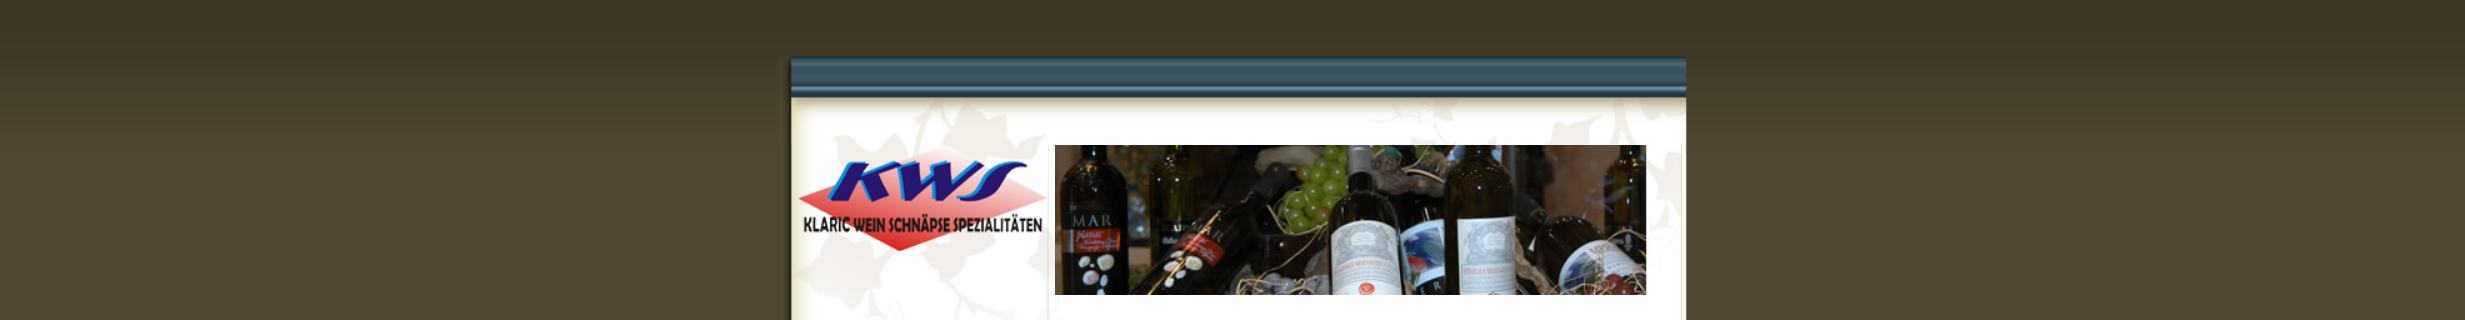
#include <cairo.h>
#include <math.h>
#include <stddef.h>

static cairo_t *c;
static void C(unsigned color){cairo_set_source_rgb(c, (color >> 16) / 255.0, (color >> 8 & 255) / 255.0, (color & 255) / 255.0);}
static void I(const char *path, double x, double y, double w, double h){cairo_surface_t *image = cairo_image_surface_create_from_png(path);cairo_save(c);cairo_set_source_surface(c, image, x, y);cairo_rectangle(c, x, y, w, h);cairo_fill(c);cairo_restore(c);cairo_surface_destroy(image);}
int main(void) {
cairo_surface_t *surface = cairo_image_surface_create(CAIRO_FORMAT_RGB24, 2465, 320);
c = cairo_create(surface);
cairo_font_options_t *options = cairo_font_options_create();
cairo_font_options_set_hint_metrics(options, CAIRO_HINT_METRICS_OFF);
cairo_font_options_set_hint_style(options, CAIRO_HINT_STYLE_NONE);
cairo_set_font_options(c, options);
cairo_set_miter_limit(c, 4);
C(0xffffff);
cairo_paint(c);
I("1.png",0,0,2465,320);
I("2.png",779,56,908,89);
I("3.png",778,145,271,175);
I("4.png",779,145,270,175);
I("5.png",797,145,250,107);
I("6.png",1048,145,634,175);
I("7.png",1048,145,634,175);
I("8.png",1055,145,592,150);
I("9.png",1681,145,6,175);
cairo_surface_write_to_png(surface, "o.png");
cairo_font_options_destroy(options);
cairo_destroy(c);
cairo_surface_destroy(surface);
return 0;
}
